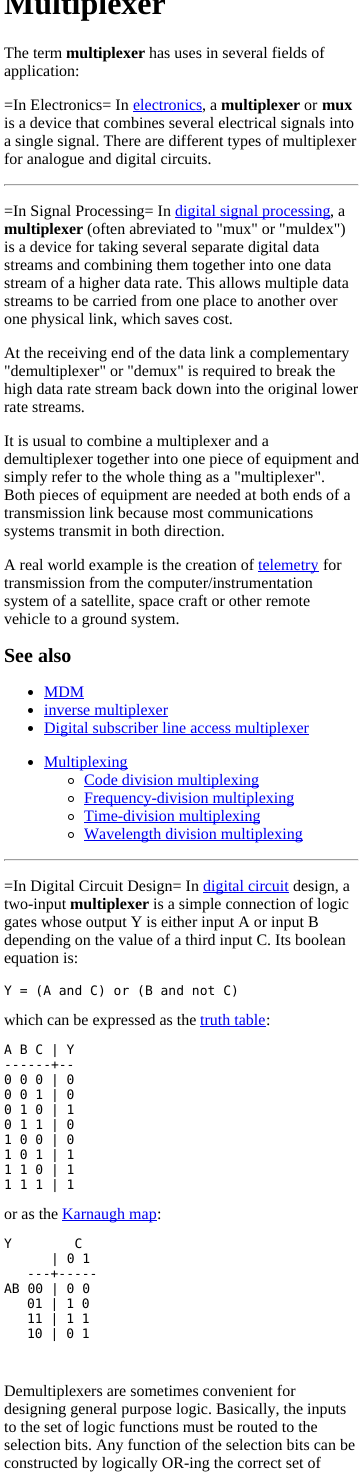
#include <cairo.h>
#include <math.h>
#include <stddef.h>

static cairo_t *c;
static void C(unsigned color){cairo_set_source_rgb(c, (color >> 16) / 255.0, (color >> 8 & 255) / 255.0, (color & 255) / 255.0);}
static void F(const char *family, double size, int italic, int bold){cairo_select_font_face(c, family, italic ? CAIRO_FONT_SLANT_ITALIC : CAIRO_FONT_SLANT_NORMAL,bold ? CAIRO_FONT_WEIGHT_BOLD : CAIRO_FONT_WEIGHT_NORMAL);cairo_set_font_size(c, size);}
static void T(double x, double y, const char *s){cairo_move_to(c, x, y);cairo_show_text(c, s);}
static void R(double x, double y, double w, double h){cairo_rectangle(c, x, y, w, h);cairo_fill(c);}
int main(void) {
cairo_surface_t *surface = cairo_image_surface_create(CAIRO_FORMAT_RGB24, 363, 1483);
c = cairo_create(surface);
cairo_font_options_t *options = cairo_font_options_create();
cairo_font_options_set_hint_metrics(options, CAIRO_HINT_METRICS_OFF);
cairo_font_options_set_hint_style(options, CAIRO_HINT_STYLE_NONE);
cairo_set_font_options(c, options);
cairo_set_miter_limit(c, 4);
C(0xffffff);
cairo_paint(c);
F("Liberation Serif",32,0,1);
C(0x000000);
T(4,14,"Multiplexer");
F("Liberation Serif",16,0,0);
T(4,58,"The term");
F("Liberation Serif",16,0,1);
T(66,58,"multiplexer");
F("Liberation Serif",16,0,0);
T(149,58,"has uses in several fields of");
T(4,76,"application:");
T(4,110,"=In Electronics= In");
C(0x0000ee);
T(133,110,"electronics");
R(133,111,69,1);
C(0x000000);
T(202,110,", a");
F("Liberation Serif",16,0,1);
T(221,110,"multiplexer");
F("Liberation Serif",16,0,0);
T(304,110,"or");
F("Liberation Serif",16,0,1);
T(322,110,"mux");
F("Liberation Serif",16,0,0);
T(4,128,"is a device that combines several electrical signals into");
T(4,146,"a single signal. There are different types of multiplexer");
T(4,164,"for analogue and digital circuits.");
C(0x9f9f9f);
R(4,184,355,1);
C(0xeeeeee);
R(358,184,1,2);
R(4,185,355,1);
C(0x9f9f9f);
R(4,184,1,2);
C(0x000000);
T(4,216,"=In Signal Processing= In");
C(0x0000ee);
R(175,217,155,1);
T(175,216,"digital signal processing");
C(0x000000);
T(330,216,", a");
F("Liberation Serif",16,0,1);
T(4,234,"multiplexer");
F("Liberation Serif",16,0,0);
T(87,234,"(often abreviated to \"mux\" or \"muldex\")");
T(4,252,"is a device for taking several separate digital data");
T(4,270,"streams and combining them together into one data");
T(4,288,"stream of a higher data rate. This allows multiple data");
T(4,306,"streams to be carried from one place to another over");
T(4,324,"one physical link, which saves cost.");
T(4,358,"At the receiving end of the data link a complementary");
T(4,376,"\"demultiplexer\" or \"demux\" is required to break the");
T(4,394,"high data rate stream back down into the original lower");
T(4,412,"rate streams.");
T(4,446,"It is usual to combine a multiplexer and a");
T(4,464,"demultiplexer together into one piece of equipment and");
T(4,482,"simply refer to the whole thing as a \"multiplexer\".");
T(4,500,"Both pieces of equipment are needed at both ends of a");
T(4,518,"transmission link because most communications");
T(4,536,"systems transmit in both direction.");
T(4,570,"A real world example is the creation of");
C(0x0000ee);
R(258,571,61,1);
T(258,570,"telemetry");
C(0x000000);
T(323,570,"for");
T(4,588,"transmission from the computer/instrumentation");
T(4,606,"system of a satellite, space craft or other remote");
T(4,624,"vehicle to a ground system.");
F("Liberation Serif",20,0,1);
T(4,662,"See also");
cairo_new_path(c);
cairo_arc(c,30.5,692.5,2.5,0,2 * M_PI);
cairo_fill(c);
F("Liberation Serif",16,0,0);
C(0x0000ee);
T(44,697,"MDM");
R(44,698,40,1);
C(0x000000);
cairo_new_path(c);
cairo_arc(c,30.5,710.5,2.5,0,2 * M_PI);
cairo_fill(c);
C(0x0000ee);
R(44,716,124,1);
T(44,715,"inverse multiplexer");
C(0x000000);
cairo_new_path(c);
cairo_arc(c,30.5,728.5,2.5,0,2 * M_PI);
cairo_fill(c);
C(0x0000ee);
R(44,734,265,1);
T(44,733,"Digital subscriber line access multiplexer");
C(0x000000);
cairo_new_path(c);
cairo_arc(c,30.5,762.5,2.5,0,2 * M_PI);
cairo_fill(c);
C(0x0000ee);
R(44,768,84,1);
T(44,767,"Multiplexing");
cairo_new_path(c);
cairo_arc(c,71,781,2.5,0,2 * M_PI);
C(0x000000);
cairo_set_line_width(c,1);
cairo_stroke(c);
C(0x0000ee);
R(84,786,175,1);
T(84,785,"Code division multiplexing");
cairo_new_path(c);
cairo_arc(c,71,799,2.5,0,2 * M_PI);
C(0x000000);
cairo_stroke(c);
C(0x0000ee);
R(84,804,210,1);
T(84,803,"Frequency-division multiplexing");
cairo_new_path(c);
cairo_arc(c,71,817,2.5,0,2 * M_PI);
C(0x000000);
cairo_stroke(c);
C(0x0000ee);
R(84,822,176,1);
T(84,821,"Time-division multiplexing");
cairo_new_path(c);
cairo_arc(c,71,835,2.5,0,2 * M_PI);
C(0x000000);
cairo_stroke(c);
C(0x0000ee);
R(84,840,219,1);
T(84,839,"Wavelength division multiplexing");
C(0x9f9f9f);
R(4,859,355,1);
C(0xeeeeee);
R(358,859,1,2);
R(4,860,355,1);
C(0x9f9f9f);
R(4,859,1,2);
C(0x000000);
T(4,891,"=In Digital Circuit Design= In");
C(0x0000ee);
R(203,892,86,1);
T(203,891,"digital circuit");
C(0x000000);
T(293,891,"design, a");
T(4,909,"two-input");
F("Liberation Serif",16,0,1);
T(70,909,"multiplexer");
F("Liberation Serif",16,0,0);
T(153,909,"is a simple connection of logic");
T(4,927,"gates whose output Y is either input A or input B");
T(4,945,"depending on the value of a third input C. Its boolean");
T(4,963,"equation is:");
F("DejaVu Sans Mono",13,0,0);
T(4,995,"Y = (A and C) or (B and not C)");
F("Liberation Serif",16,0,0);
T(4,1025,"which can be expressed as the");
C(0x0000ee);
T(200,1025,"truth table");
R(200,1026,66,1);
C(0x000000);
T(266,1025,":");
F("DejaVu Sans Mono",13,0,0);
T(4,1054,"A B C | Y");
T(4,1069,"------+--");
T(4,1084,"0 0 0 | 0");
T(4,1099,"0 0 1 | 0");
T(4,1114,"0 1 0 | 1");
T(4,1129,"0 1 1 | 0");
T(4,1144,"1 0 0 | 0");
T(4,1159,"1 0 1 | 1");
T(4,1174,"1 1 0 | 1");
T(4,1189,"1 1 1 | 1");
F("Liberation Serif",16,0,0);
T(4,1219,"or as the");
C(0x0000ee);
R(62,1220,95,1);
T(62,1219,"Karnaugh map");
C(0x000000);
T(157,1219,":");
F("DejaVu Sans Mono",13,0,0);
T(4,1248,"Y        C");
T(51,1263,"| 0 1");
T(27,1278,"---+-----");
T(4,1293,"AB 00 | 0 0");
T(27,1308,"01 | 1 0");
T(27,1323,"11 | 1 1");
T(27,1338,"10 | 0 1");
F("Liberation Serif",16,0,0);
T(4,1396,"Demultiplexers are sometimes convenient for");
T(4,1414,"designing general purpose logic. Basically, the inputs");
T(4,1432,"to the set of logic functions must be routed to the");
T(4,1450,"selection bits. Any function of the selection bits can be");
T(4,1468,"constructed by logically OR-ing the correct set of");
cairo_surface_write_to_png(surface, "o.png");
cairo_font_options_destroy(options);
cairo_destroy(c);
cairo_surface_destroy(surface);
return 0;
}
